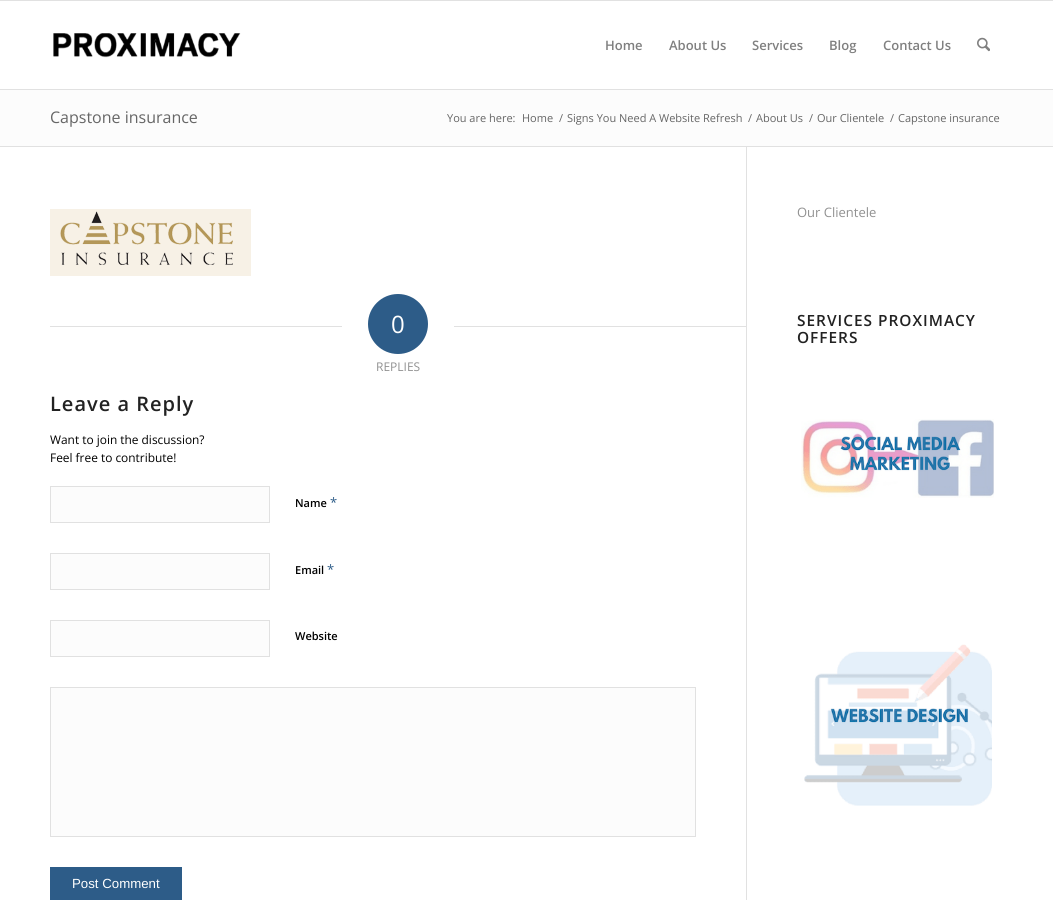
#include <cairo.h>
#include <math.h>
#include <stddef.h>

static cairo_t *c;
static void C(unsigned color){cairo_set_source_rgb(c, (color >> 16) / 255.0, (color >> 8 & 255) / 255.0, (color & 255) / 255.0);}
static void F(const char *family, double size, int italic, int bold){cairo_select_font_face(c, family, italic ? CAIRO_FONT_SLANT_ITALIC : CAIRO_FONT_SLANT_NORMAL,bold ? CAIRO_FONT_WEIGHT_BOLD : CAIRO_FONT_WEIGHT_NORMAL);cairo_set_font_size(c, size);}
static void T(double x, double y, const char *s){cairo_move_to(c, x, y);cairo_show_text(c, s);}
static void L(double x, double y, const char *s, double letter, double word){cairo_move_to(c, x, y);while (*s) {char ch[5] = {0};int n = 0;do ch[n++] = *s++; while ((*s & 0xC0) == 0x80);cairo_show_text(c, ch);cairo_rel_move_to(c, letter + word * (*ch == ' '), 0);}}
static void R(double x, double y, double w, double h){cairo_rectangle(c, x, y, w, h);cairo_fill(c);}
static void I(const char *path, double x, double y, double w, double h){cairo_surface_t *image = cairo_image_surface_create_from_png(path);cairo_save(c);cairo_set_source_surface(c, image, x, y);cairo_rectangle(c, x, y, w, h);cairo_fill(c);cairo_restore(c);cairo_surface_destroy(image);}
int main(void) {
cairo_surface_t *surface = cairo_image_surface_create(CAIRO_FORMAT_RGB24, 1053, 900);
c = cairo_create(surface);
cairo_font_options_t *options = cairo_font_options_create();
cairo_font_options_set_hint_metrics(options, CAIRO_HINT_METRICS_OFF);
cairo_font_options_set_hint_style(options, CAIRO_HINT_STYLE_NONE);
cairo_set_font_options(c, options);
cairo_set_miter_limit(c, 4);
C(0xffffff);
cairo_paint(c);
C(0xe1e1e1);
R(0,0,1053,1);
R(0,89,1053,1);
I("1.png",53,33,188,25);
F("Open Sans SemiBold",13,0,0);
C(0x808080);
T(605,50,"Home");
T(669,50,"About Us");
T(752,50,"Services");
T(829,50,"Blog");
T(883,50,"Contact Us");
I("2.png",977,37,13,15);
C(0xfcfcfc);
R(0,90,1053,56);
F("Open Sans",16,0,0);
C(0x666666);
T(50,123,"Capstone insurance");
F("Open Sans",11,0,0);
T(447,122,"You are here:");
T(522,122,"Home");
T(559,122,"/");
T(567,122,"Signs You Need A Website Refresh");
T(748,122,"/");
T(756,122,"About Us");
T(809,122,"/");
T(817,122,"Our Clientele");
T(890,122,"/");
T(898,122,"Capstone insurance");
C(0xe1e1e1);
R(0,146,1053,1);
F("Open Sans",13,0,0);
C(0x919191);
T(797,217,"Our Clientele");
F("Open Sans SemiBold",15.4,0,0);
C(0x222222);
L(797,326,"SERVICES PROXIMACY",1,0);
L(797,343,"OFFERS",1,0);
I("3.png",801,419,193,79);
I("4.png",804,644,188,162);
C(0xe1e1e1);
R(746,147,1,753);
I("5.png",50,209,201,67);
R(50,326,292,1);
C(0x2d5c88);
cairo_arc(c,398,324,30,0,2 * M_PI);
cairo_fill(c);
F("Open Sans",24,0,0);
C(0xffffff);
T(391,333,"0");
C(0xe1e1e1);
R(454,326,292,1);
F("Open Sans",12,0,0);
C(0x919191);
T(376,371,"REPLIES");
F("Open Sans SemiBold",20,0,0);
C(0x222222);
L(50,411,"Leave a Reply",1,0);
F("Open Sans",11.9,0,0);
C(0x000000);
T(50,444,"Want to join the discussion?");
T(50,462,"Feel free to contribute!");
C(0xfcfcfc);
cairo_rectangle(c,50.5,486.5,219,36);
cairo_fill_preserve(c);
C(0xe1e1e1);
cairo_set_line_width(c,1);
cairo_stroke(c);
F("Open Sans SemiBold",11,0,0);
C(0x000000);
T(295,507,"Name");
F("Open Sans",13,0,0);
C(0x2d5c88);
T(330,507,"*");
C(0xfcfcfc);
cairo_rectangle(c,50.5,553.5,219,36);
cairo_fill_preserve(c);
C(0xe1e1e1);
cairo_stroke(c);
F("Open Sans SemiBold",11,0,0);
C(0x000000);
T(295,574,"Email");
F("Open Sans",13,0,0);
C(0x2d5c88);
T(327,574,"*");
C(0xfcfcfc);
cairo_rectangle(c,50.5,620.5,219,36);
cairo_fill_preserve(c);
C(0xe1e1e1);
cairo_stroke(c);
F("Open Sans SemiBold",11,0,0);
C(0x000000);
T(295,640,"Website");
C(0xfcfcfc);
cairo_rectangle(c,50.5,687.5,645,149);
cairo_fill_preserve(c);
C(0xe1e1e1);
cairo_stroke(c);
C(0x2d5c88);
R(50,867,132,33);
F("Liberation Sans",13.25,0,0);
C(0xffffff);
T(72,888,"Post Comment");
cairo_surface_write_to_png(surface, "o.png");
cairo_font_options_destroy(options);
cairo_destroy(c);
cairo_surface_destroy(surface);
return 0;
}
